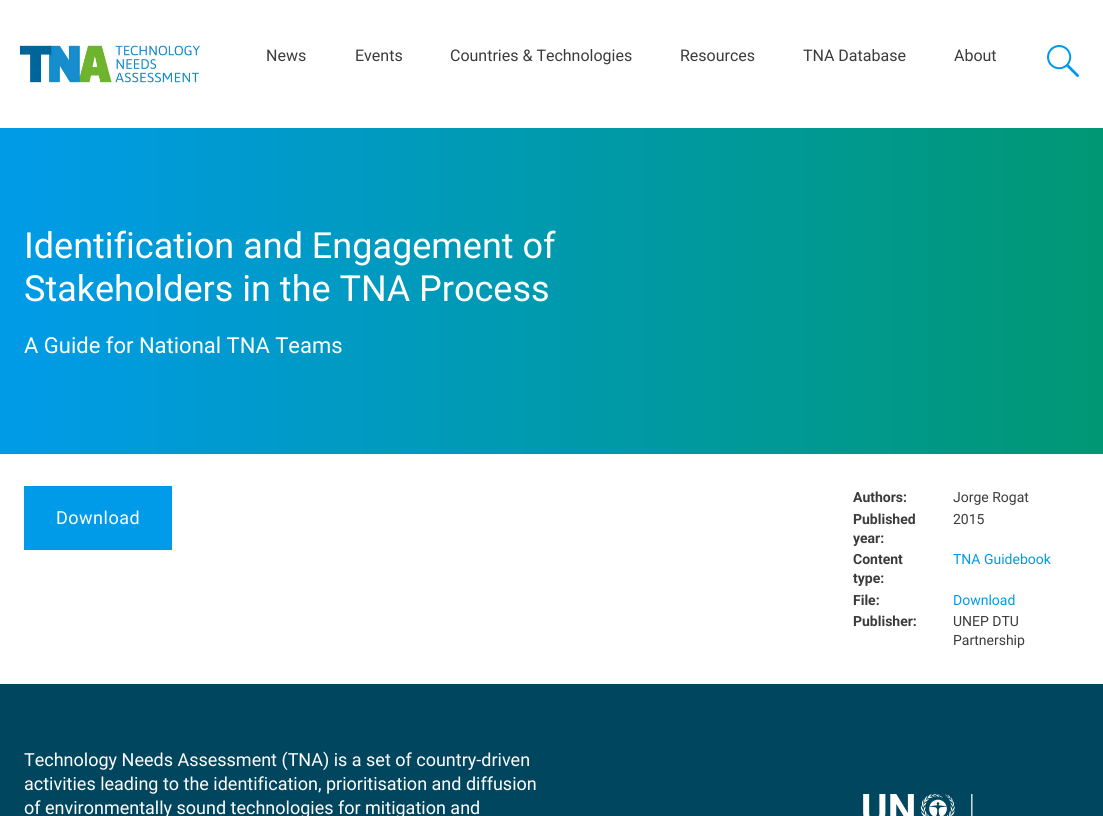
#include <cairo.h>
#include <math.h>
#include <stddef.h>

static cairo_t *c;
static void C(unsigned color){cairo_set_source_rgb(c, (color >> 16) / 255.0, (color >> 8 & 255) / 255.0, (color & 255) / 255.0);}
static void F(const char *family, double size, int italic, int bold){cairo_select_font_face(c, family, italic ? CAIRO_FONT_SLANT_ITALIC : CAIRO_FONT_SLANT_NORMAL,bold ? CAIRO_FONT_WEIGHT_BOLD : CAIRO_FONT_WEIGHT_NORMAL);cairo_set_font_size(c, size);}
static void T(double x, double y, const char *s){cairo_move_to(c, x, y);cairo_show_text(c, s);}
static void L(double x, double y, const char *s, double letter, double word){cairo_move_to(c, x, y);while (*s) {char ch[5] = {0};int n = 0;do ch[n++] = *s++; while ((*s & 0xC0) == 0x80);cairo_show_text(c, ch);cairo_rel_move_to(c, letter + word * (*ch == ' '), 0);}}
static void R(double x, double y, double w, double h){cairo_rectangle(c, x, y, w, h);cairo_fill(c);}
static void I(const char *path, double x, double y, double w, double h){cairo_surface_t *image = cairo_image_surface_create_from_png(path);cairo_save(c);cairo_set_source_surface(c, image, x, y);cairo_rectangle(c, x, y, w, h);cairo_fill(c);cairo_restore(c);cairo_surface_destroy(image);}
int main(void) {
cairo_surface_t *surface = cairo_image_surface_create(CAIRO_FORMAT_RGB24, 1103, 816);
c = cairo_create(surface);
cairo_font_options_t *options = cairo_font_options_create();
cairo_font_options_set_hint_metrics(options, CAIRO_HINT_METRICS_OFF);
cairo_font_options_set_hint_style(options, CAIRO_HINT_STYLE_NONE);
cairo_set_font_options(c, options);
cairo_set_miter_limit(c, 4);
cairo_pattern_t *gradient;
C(0xffffff);
cairo_paint(c);
I("1.png",20,45,180,38);
F("Roboto",16,0,0);
C(0x3b3b3b);
T(266,61,"News");
T(355,61,"Events");
T(450,61,"Countries & Technologies");
T(680,61,"Resources");
T(803,61,"TNA Database");
T(954,61,"About");
I("2.png",1047,45,32,32);
gradient = cairo_pattern_create_linear(0,291,1103,291);
cairo_pattern_add_color_stop_rgba(gradient,0,0,0.608,0.91,1);
cairo_pattern_add_color_stop_rgba(gradient,1,0,0.596,0.451,1);
cairo_set_source(c,gradient);
cairo_pattern_destroy(gradient);
R(0,128,1103,326);
F("Roboto",36,0,0);
C(0xffffff);
T(24,258,"Identification and Engagement of");
T(24,301,"Stakeholders in the TNA Process");
F("Roboto",22,0,0);
T(24,353,"A Guide for National TNA Teams");
C(0x009be8);
R(24,486,148,64);
F("Roboto",18,0,0);
C(0xffffff);
L(56,524,"Download",.5,0);
F("Roboto",14,0,1);
C(0x3b3b3b);
T(853,502,"Authors:");
F("Roboto",14,0,0);
T(953,502,"Jorge Rogat");
F("Roboto",14,0,1);
T(853,524,"Published");
T(853,543,"year:");
F("Roboto",14,0,0);
T(953,524,"2015");
F("Roboto",14,0,1);
T(853,564,"Content");
T(853,583,"type:");
F("Roboto",14,0,0);
C(0x009be8);
T(953,564,"TNA Guidebook");
F("Roboto",14,0,1);
C(0x3b3b3b);
T(853,605,"File:");
F("Roboto",14,0,0);
C(0x009be8);
T(953,605,"Download");
F("Roboto",14,0,1);
C(0x3b3b3b);
T(853,626,"Publisher:");
F("Roboto",14,0,0);
T(953,626,"UNEP DTU");
T(953,645,"Partnership");
C(0x01465f);
R(0,684,1103,132);
F("Roboto",18,0,0);
C(0xffffff);
T(24,766,"Technology Needs Assessment (TNA) is a set of country-driven");
T(24,790,"activities leading to the identification, prioritisation and diffusion");
T(24,814,"of environmentally sound technologies for mitigation and");
I("3.png",863,794,110,22);
cairo_surface_write_to_png(surface, "o.png");
cairo_font_options_destroy(options);
cairo_destroy(c);
cairo_surface_destroy(surface);
return 0;
}
